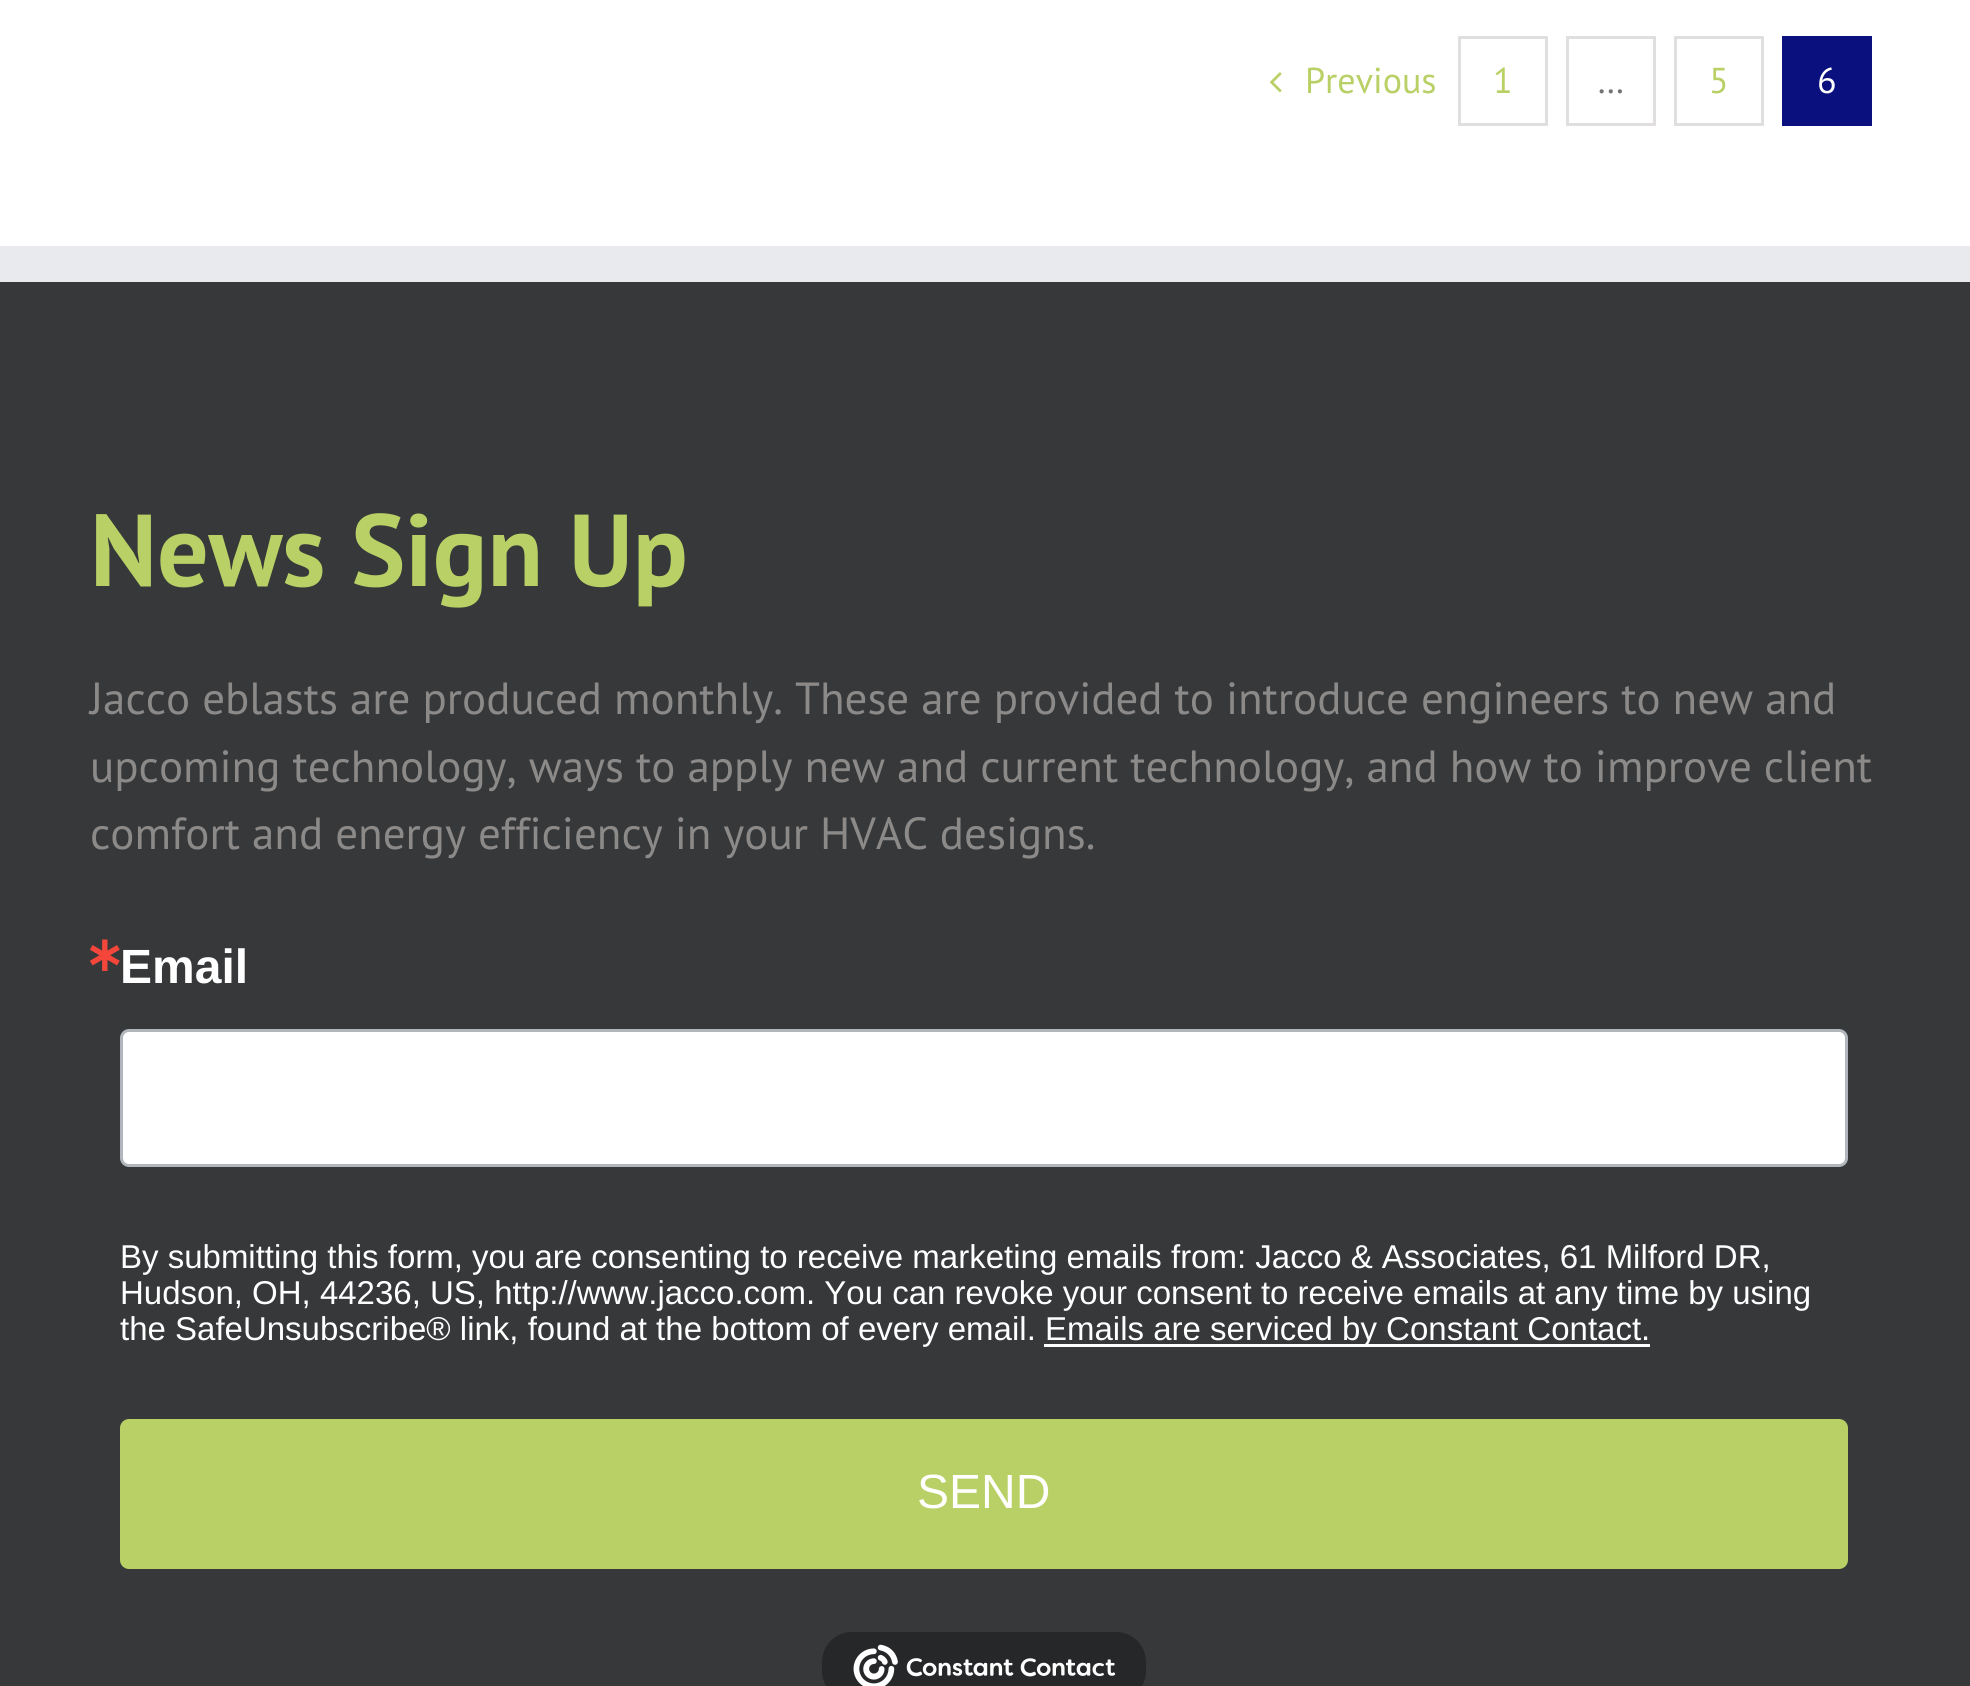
#include <cairo.h>
#include <math.h>
#include <stddef.h>

static cairo_t *c;
static void C(unsigned color){cairo_set_source_rgb(c, (color >> 16) / 255.0, (color >> 8 & 255) / 255.0, (color & 255) / 255.0);}
static void F(const char *family, double size, int italic, int bold){cairo_select_font_face(c, family, italic ? CAIRO_FONT_SLANT_ITALIC : CAIRO_FONT_SLANT_NORMAL,bold ? CAIRO_FONT_WEIGHT_BOLD : CAIRO_FONT_WEIGHT_NORMAL);cairo_set_font_size(c, size);}
static void T(double x, double y, const char *s){cairo_move_to(c, x, y);cairo_show_text(c, s);}
static void R(double x, double y, double w, double h){cairo_rectangle(c, x, y, w, h);cairo_fill(c);}
static void Q(double x, double y, double w, double h, double r){cairo_new_sub_path(c);cairo_arc(c, x + w - r, y + h - r, r, 0, M_PI / 2);cairo_arc(c, x + r, y + h - r, r, M_PI / 2, M_PI);cairo_arc(c, x + r, y + r, r, M_PI, 1.5 * M_PI);cairo_arc(c, x + w - r, y + r, r, 1.5 * M_PI, 2 * M_PI);cairo_close_path(c);}
static void I(const char *path, double x, double y, double w, double h){cairo_surface_t *image = cairo_image_surface_create_from_png(path);cairo_save(c);cairo_set_source_surface(c, image, x, y);cairo_rectangle(c, x, y, w, h);cairo_fill(c);cairo_restore(c);cairo_surface_destroy(image);}
int main(void) {
cairo_surface_t *surface = cairo_image_surface_create(CAIRO_FORMAT_RGB24, 1970, 1686);
c = cairo_create(surface);
cairo_font_options_t *options = cairo_font_options_create();
cairo_font_options_set_hint_metrics(options, CAIRO_HINT_METRICS_OFF);
cairo_font_options_set_hint_style(options, CAIRO_HINT_STYLE_NONE);
cairo_set_font_options(c, options);
cairo_set_miter_limit(c, 4);
C(0xffffff);
cairo_paint(c);
I("1.png",1270,72,12,21);
F("PT Sans",36,0,0);
C(0xb8d065);
T(1305,93,"Previous");
cairo_rectangle(c,1459.5,37.5,87,87);
C(0xe0dede);
cairo_set_line_width(c,3);
cairo_stroke(c);
C(0xb8d065);
T(1493,93,"1");
cairo_rectangle(c,1567.5,37.5,87,87);
C(0xe0dede);
cairo_stroke(c);
C(0x747474);
T(1597,93,"…");
cairo_rectangle(c,1675.5,37.5,87,87);
C(0xe0dede);
cairo_stroke(c);
C(0xb8d065);
T(1709,93,"5");
C(0x0a117e);
R(1782,36,90,90);
C(0xffffff);
T(1817,93,"6");
C(0x363839);
R(0,282,1970,1404);
C(0xe9eaee);
R(0,246,1970,36);
F("PT Sans",102,0,1);
C(0xb8d065);
T(90,586,"News Sign Up");
F("PT Sans",45,0,0);
C(0x8c8989);
T(90,714,"Jacco eblasts are produced monthly. These are provided to introduce engineers to new and");
T(90,782,"upcoming technology, ways to apply new and current technology, and how to improve client");
T(90,849,"comfort and energy efficiency in your HVAC designs.");
F("DejaVu Sans",48,0,1);
C(0xf5463b);
T(84,971,"∗");
F("Liberation Sans",48,0,1);
C(0xffffff);
T(120,983,"Email");
Q(121.5,1030.5,1725,135,7.5);
cairo_fill_preserve(c);
C(0xb0b6bb);
cairo_stroke(c);
F("Liberation Sans",33,0,0);
C(0xffffff);
T(120,1268,"By submitting this form, you are consenting to receive marketing emails from: Jacco & Associates, 61 Milford DR,");
T(120,1304,"Hudson, OH, 44236, US, http://www.jacco.com. You can revoke your consent to receive emails at any time by using");
T(120,1340,"the SafeUnsubscribe® link, found at the bottom of every email.");
R(1044,1344,606,3);
T(1045,1340,"Emails are serviced by Constant Contact.");
C(0xb8d065);
Q(121.5,1420.5,1725,147,7.5);
cairo_fill_preserve(c);
cairo_stroke(c);
F("Liberation Sans",48,0,0);
C(0xffffff);
T(917,1508,"SEND");
C(0x262728);
Q(822,1632,324,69,30);
cairo_fill(c);
I("2.png",853,1644,263,42);
cairo_surface_write_to_png(surface, "o.png");
cairo_font_options_destroy(options);
cairo_destroy(c);
cairo_surface_destroy(surface);
return 0;
}
